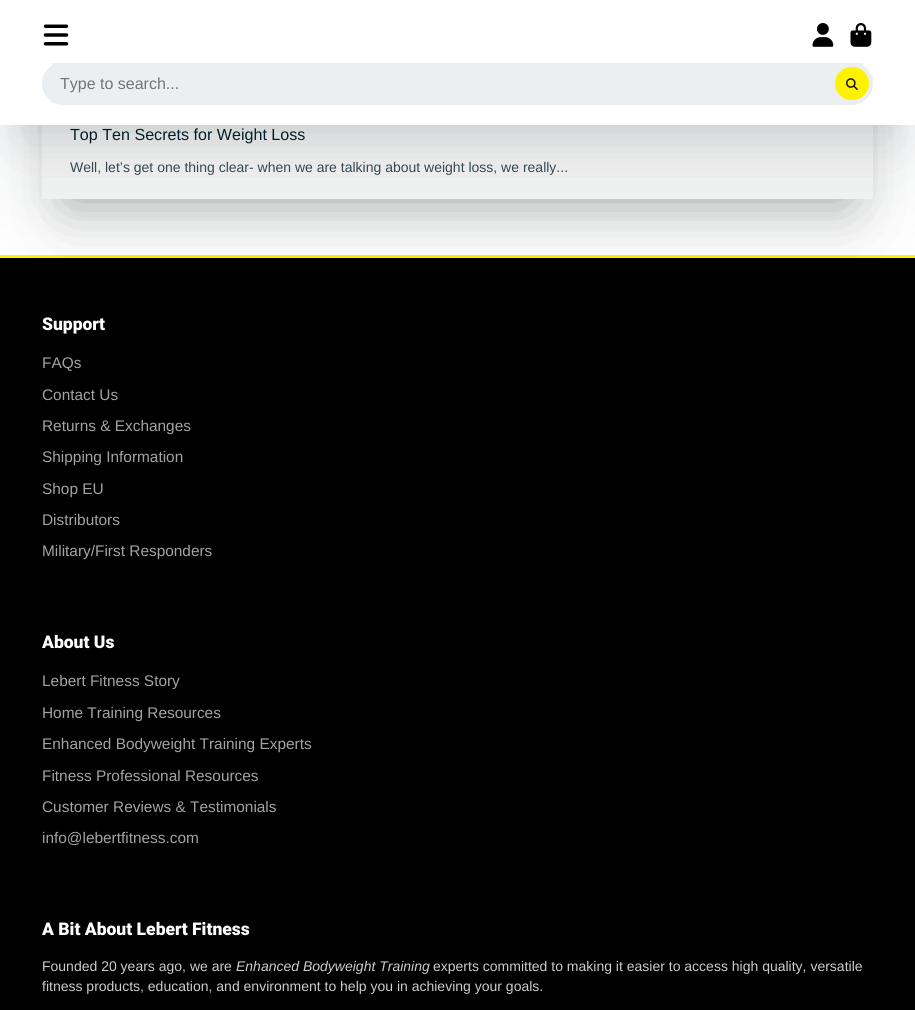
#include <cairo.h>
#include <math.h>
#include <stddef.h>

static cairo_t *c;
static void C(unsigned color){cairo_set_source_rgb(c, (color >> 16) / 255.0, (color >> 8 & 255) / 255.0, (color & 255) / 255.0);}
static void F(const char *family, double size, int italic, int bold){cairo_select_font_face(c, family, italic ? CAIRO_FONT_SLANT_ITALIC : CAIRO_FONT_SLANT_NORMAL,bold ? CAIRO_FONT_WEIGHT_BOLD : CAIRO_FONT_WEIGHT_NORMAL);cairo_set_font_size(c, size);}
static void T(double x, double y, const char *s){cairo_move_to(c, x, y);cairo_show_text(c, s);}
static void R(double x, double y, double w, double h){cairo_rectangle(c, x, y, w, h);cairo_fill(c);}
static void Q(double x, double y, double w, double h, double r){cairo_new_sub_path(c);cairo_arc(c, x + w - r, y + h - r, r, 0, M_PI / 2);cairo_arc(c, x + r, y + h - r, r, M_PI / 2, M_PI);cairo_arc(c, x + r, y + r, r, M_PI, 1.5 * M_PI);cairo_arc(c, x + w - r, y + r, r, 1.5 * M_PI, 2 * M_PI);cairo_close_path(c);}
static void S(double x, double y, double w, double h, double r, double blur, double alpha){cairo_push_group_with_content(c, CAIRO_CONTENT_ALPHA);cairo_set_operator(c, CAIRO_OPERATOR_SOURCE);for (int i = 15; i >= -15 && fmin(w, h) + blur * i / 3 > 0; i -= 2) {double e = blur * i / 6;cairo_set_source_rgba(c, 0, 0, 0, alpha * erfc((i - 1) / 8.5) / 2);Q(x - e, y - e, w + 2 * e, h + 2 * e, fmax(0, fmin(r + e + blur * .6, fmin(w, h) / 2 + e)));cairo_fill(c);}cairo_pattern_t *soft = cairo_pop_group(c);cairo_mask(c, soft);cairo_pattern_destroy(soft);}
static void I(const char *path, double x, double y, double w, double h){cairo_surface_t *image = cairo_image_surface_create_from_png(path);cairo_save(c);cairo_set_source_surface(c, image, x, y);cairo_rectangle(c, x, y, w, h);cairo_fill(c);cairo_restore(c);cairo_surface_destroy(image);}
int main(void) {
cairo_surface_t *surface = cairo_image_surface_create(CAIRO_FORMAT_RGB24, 915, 1010);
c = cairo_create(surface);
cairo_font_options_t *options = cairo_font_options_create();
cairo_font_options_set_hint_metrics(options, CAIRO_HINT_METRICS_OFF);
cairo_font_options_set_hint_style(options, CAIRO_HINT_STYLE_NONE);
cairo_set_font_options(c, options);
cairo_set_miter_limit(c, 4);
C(0xffffff);
cairo_paint(c);
C(0x000000);
R(0,258,915,752);
C(0xfff200);
R(0,255,915,3);
C(0x030d12);
S(68,5,779,194,0,26,.3);
S(60,13,796,212,0,44,.1);
C(0xf4f4f4);
Q(42,-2,831,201,2);
cairo_fill(c);
C(0x0f242d);
S(14,40,887,97,0,19,.1);
S(14,58,887,97,0,44,.1);
C(0xffffff);
R(0,0,915,125);
I("1.png",43,24,26,22);
I("2.png",812,23,22,24);
I("3.png",850,23,22,24);
C(0xebeff1);
Q(42,63,831,40,20);
cairo_fill(c);
R(52,63,811,40);
Q(42,63,831,42,21);
cairo_fill(c);
F("Liberation Sans",16,0,0);
C(0x757575);
T(60,89,"Type to search...");
C(0xfff200);
Q(835,67,34,33,16.5);
cairo_fill(c);
I("4.png",846,78,12,12);
F("Liberation Sans",16.1,0,0);
C(0x061e28);
T(70,140,"Top Ten Secrets for Weight Loss");
F("Liberation Sans",14,0,0);
C(0x364951);
T(70,172,"Well, let’s get one thing clear- when we are talking about weight loss, we really...");
F("Roboto Black",17.5,0,0);
C(0xffffff);
T(42,330,"Support");
F("Liberation Sans",15.4,0,0);
C(0xa3a3a3);
T(42,368,"FAQs");
T(42,400,"Contact Us");
T(42,431,"Returns & Exchanges");
T(42,462,"Shipping Information");
T(42,494,"Shop EU");
T(42,525,"Distributors");
T(42,556,"Military/First Responders");
F("Roboto Black",17.5,0,0);
C(0xffffff);
T(42,648,"About Us");
F("Liberation Sans",15.4,0,0);
C(0xa3a3a3);
T(42,686,"Lebert Fitness Story");
T(42,718,"Home Training Resources");
T(42,749,"Enhanced Bodyweight Training Experts");
T(42,781,"Fitness Professional Resources");
T(42,812,"Customer Reviews & Testimonials");
T(42,843,"info@lebertfitness.com");
F("Roboto Black",17.5,0,0);
C(0xffffff);
T(42,935,"A Bit About Lebert Fitness");
F("Liberation Sans",14,0,0);
C(0xcccccc);
T(42,971,"Founded 20 years ago, we are");
F("Liberation Sans",14,1,0);
T(236,971,"Enhanced Bodyweight Training");
F("Liberation Sans",14,0,0);
T(433,971,"experts committed to making it easier to access high quality, versatile");
T(42,991,"fitness products, education, and environment to help you in achieving your goals.");
cairo_surface_write_to_png(surface, "o.png");
cairo_font_options_destroy(options);
cairo_destroy(c);
cairo_surface_destroy(surface);
return 0;
}
